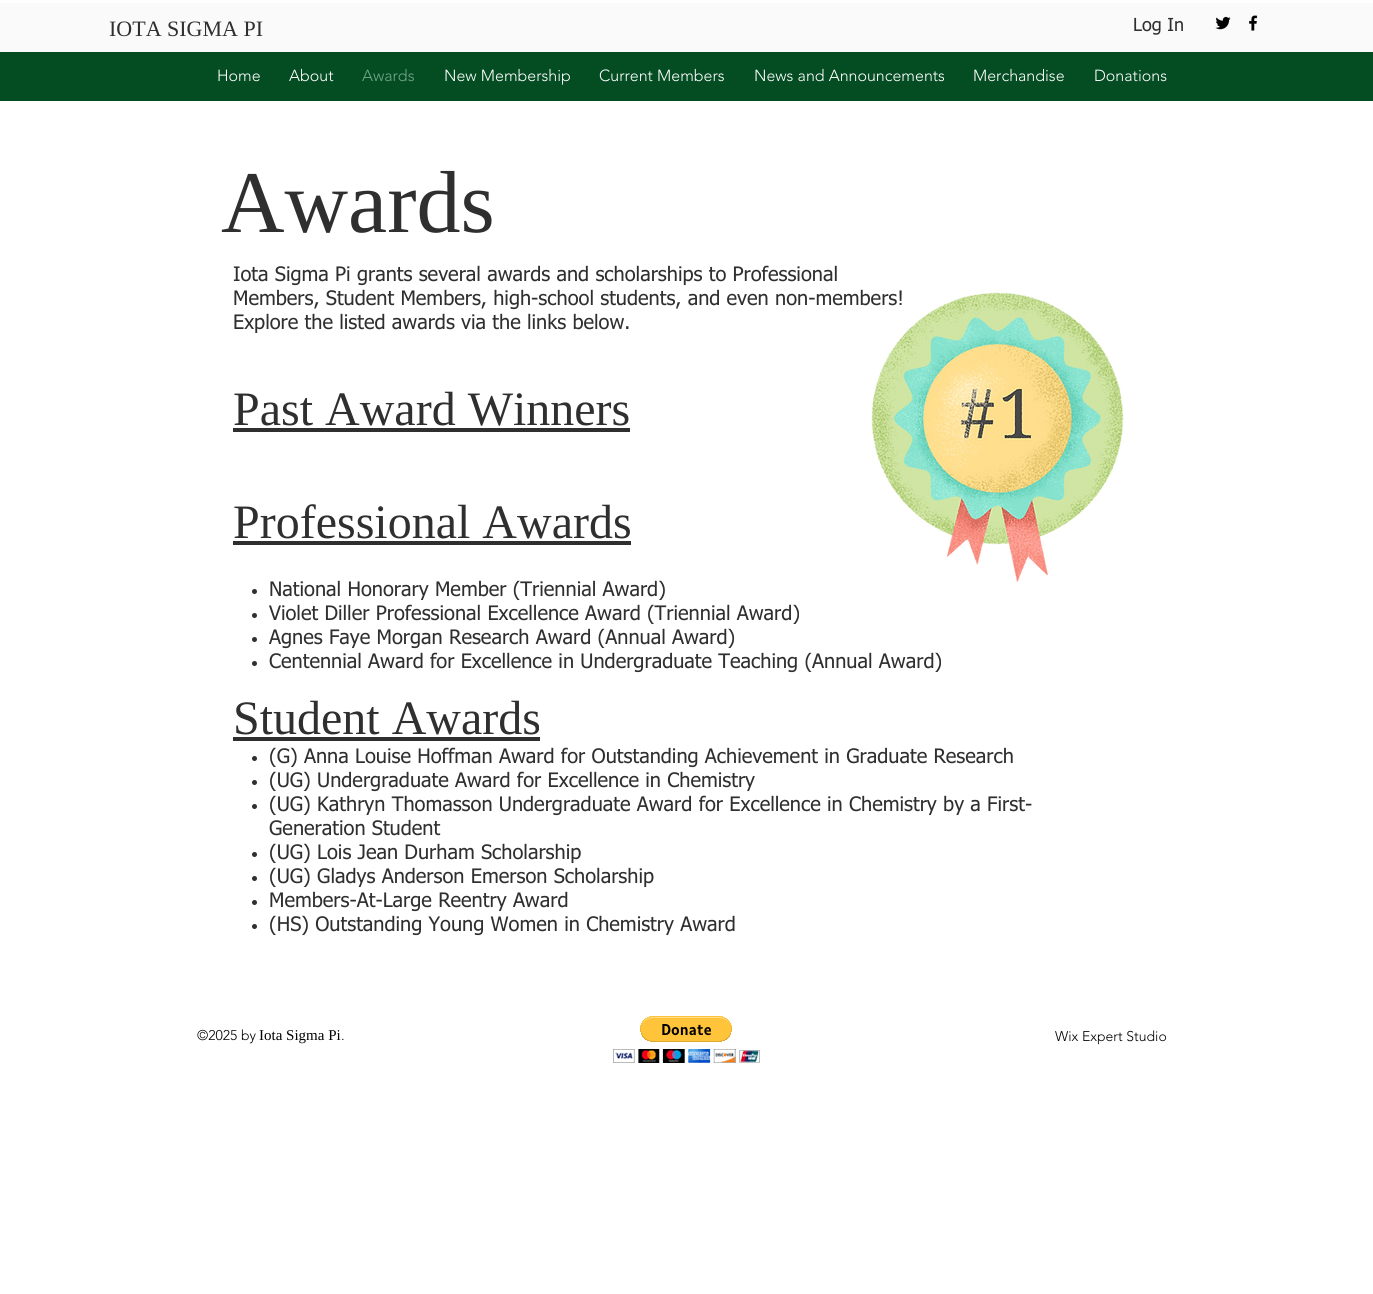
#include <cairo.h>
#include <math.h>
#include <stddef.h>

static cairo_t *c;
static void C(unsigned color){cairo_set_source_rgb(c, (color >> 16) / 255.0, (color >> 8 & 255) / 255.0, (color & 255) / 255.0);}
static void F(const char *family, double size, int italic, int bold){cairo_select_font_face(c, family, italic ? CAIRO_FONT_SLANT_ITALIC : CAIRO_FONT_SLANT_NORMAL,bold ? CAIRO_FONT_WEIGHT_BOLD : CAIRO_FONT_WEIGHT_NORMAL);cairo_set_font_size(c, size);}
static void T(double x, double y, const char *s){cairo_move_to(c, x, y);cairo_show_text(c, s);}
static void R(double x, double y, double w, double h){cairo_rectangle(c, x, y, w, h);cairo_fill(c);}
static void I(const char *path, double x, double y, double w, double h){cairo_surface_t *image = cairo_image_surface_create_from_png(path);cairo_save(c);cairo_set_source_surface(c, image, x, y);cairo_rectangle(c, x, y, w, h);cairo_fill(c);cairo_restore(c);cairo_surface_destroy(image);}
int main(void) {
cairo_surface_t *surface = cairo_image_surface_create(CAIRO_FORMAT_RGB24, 1373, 1294);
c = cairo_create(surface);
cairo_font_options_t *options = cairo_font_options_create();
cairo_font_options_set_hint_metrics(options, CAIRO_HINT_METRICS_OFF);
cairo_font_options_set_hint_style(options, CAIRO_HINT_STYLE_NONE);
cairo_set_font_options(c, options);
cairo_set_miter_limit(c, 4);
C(0xffffff);
cairo_paint(c);
C(0xfafafa);
R(0,3,1373,49);
F("Liberation Serif",22,0,0);
C(0x2f2f30);
T(109,36,"IOTA SIGMA PI");
F("tahoma",18,0,0);
T(1133,31,"Log In");
I("1.png",1215,16,16,14);
I("2.png",1249,15,9,16);
C(0x044d23);
R(0,52,1373,49);
F("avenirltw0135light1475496 Light",16,0,0);
C(0xffffff);
T(217,81,"Home");
T(289,81,"About");
C(0x72a688);
T(362,81,"Awards");
C(0xffffff);
T(444,81,"New Membership");
T(599,81,"Current Members");
T(754,81,"News and Announcements");
T(973,81,"Merchandise");
T(1094,81,"Donations");
F("Liberation Serif",88,0,0);
C(0x2f2f30);
T(221,232,"Awards");
F("tahoma",20,0,0);
T(233,281,"Iota Sigma Pi grants several awards and scholarships to Professional");
T(233,305,"Members, Student Members, high-school students, and even non-members!");
T(233,329,"Explore the listed awards via the links below.");
I("3.png",871,292,253,291);
F("Liberation Serif",48,0,0);
T(233,425,"Past Award Winners");
R(233,428,397,4);
T(233,538,"Professional Awards");
R(233,541,398,4);
cairo_new_path(c);
cairo_arc(c,254.5,591.5,2.5,0,2 * M_PI);
cairo_fill(c);
F("tahoma",20,0,0);
T(269,596,"National Honorary Member (Triennial Award)");
cairo_new_path(c);
cairo_arc(c,254.5,615.5,2.5,0,2 * M_PI);
cairo_fill(c);
T(269,620,"Violet Diller Professional Excellence Award (Triennial Award)");
cairo_new_path(c);
cairo_arc(c,254.5,639.5,2.5,0,2 * M_PI);
cairo_fill(c);
T(269,644,"Agnes Faye Morgan Research Award (Annual Award)");
cairo_new_path(c);
cairo_arc(c,254.5,663.5,2.5,0,2 * M_PI);
cairo_fill(c);
T(269,668,"Centennial Award for Excellence in Undergraduate Teaching (Annual Award)");
F("Liberation Serif",48,0,0);
T(233,734,"Student Awards");
R(233,737,307,4);
cairo_new_path(c);
cairo_arc(c,254.5,758.5,2.5,0,2 * M_PI);
cairo_fill(c);
F("tahoma",20,0,0);
T(269,763,"(G) Anna Louise Hoffman Award for Outstanding Achievement in Graduate Research");
cairo_new_path(c);
cairo_arc(c,254.5,782.5,2.5,0,2 * M_PI);
cairo_fill(c);
T(269,787,"(UG) Undergraduate Award for Excellence in Chemistry");
cairo_new_path(c);
cairo_arc(c,254.5,806.5,2.5,0,2 * M_PI);
cairo_fill(c);
T(269,811,"(UG) Kathryn Thomasson Undergraduate Award for Excellence in Chemistry by a First-");
T(269,835,"Generation Student");
cairo_new_path(c);
cairo_arc(c,254.5,854.5,2.5,0,2 * M_PI);
cairo_fill(c);
T(269,859,"(UG) Lois Jean Durham Scholarship");
cairo_new_path(c);
cairo_arc(c,254.5,878.5,2.5,0,2 * M_PI);
cairo_fill(c);
T(269,883,"(UG) Gladys Anderson Emerson Scholarship");
cairo_new_path(c);
cairo_arc(c,254.5,902.5,2.5,0,2 * M_PI);
cairo_fill(c);
T(269,907,"Members-At-Large Reentry Award");
cairo_new_path(c);
cairo_arc(c,254.5,926.5,2.5,0,2 * M_PI);
cairo_fill(c);
T(269,931,"(HS) Outstanding Young Women in Chemistry Award");
F("avenirltw0135light1475496 Light",14,0,0);
C(0x000000);
T(197,1040,"©2025 by");
F("Liberation Serif",15,0,0);
T(259,1040,"Iota Sigma Pi");
F("avenirltw0135light1475496 Light",14,0,0);
T(341,1040,".");
I("4.png",613,1016,147,47);
T(1055,1041,"Wix Expert Studio");
cairo_surface_write_to_png(surface, "o.png");
cairo_font_options_destroy(options);
cairo_destroy(c);
cairo_surface_destroy(surface);
return 0;
}
